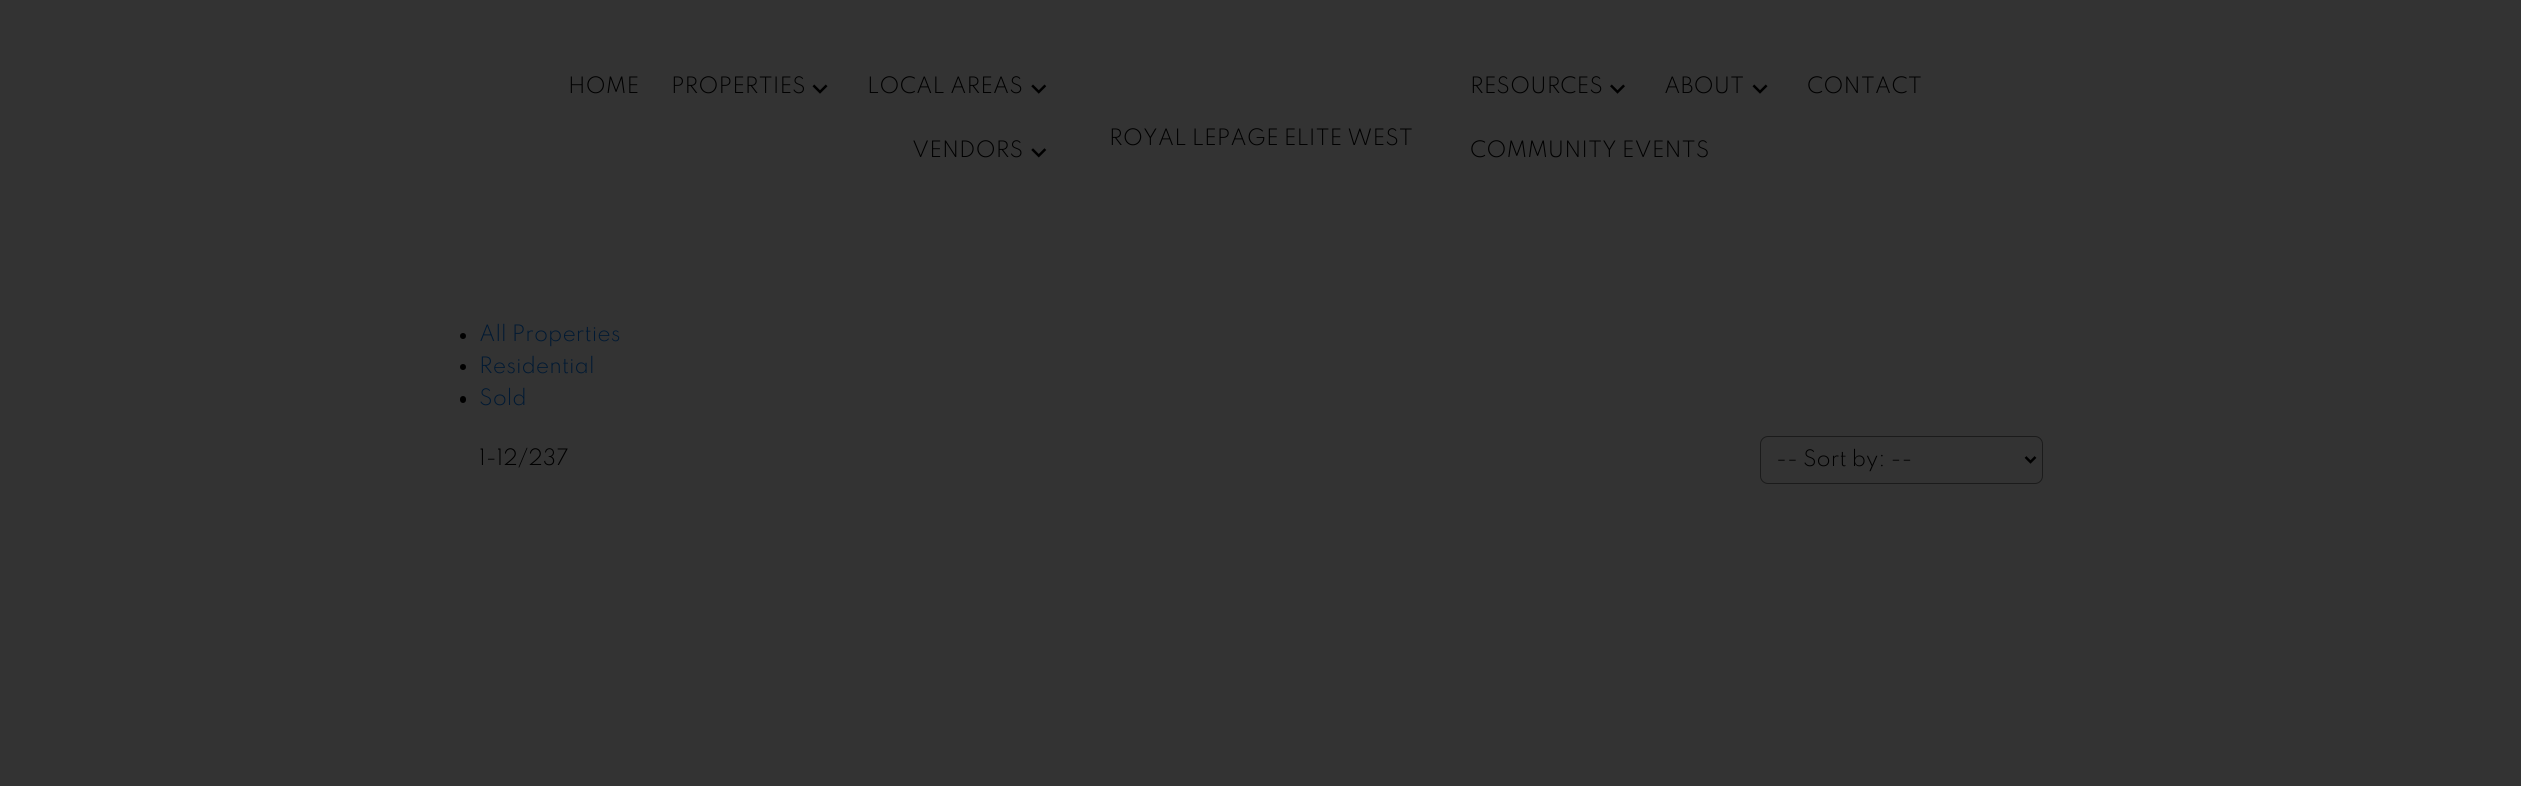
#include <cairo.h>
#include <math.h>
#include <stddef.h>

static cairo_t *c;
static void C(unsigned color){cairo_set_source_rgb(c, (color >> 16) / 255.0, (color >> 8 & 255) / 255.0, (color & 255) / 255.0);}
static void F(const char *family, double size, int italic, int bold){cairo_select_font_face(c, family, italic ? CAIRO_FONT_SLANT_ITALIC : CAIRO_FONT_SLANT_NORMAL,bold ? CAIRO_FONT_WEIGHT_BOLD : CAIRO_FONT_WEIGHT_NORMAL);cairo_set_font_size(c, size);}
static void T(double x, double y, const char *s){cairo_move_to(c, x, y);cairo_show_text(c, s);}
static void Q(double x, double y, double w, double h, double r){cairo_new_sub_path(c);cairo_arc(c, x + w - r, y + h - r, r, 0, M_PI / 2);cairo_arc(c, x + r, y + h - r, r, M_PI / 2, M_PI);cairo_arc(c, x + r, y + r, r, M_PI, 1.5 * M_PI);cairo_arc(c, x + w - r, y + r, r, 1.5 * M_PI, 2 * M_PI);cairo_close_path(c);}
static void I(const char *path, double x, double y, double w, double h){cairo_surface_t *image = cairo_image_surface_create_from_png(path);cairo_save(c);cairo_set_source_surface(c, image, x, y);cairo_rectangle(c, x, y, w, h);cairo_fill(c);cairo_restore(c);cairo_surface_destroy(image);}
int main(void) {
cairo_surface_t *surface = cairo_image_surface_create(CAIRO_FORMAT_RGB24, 2521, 786);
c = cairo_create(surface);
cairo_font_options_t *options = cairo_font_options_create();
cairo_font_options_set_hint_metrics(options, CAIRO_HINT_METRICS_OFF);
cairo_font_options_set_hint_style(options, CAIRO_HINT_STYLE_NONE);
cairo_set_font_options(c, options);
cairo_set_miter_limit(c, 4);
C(0x333333);
cairo_paint(c);
F("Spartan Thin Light",20,0,0);
C(0x000000);
T(568,93,"HOME");
T(671,93,"PROPERTIES");
I("1.png",812,84,16,10);
T(867,93,"LOCAL AREAS");
I("2.png",1031,84,16,10);
T(912,157,"VENDORS");
I("3.png",1031,148,16,10);
T(1109,145,"ROYAL LEPAGE ELITE WEST");
T(1470,93,"RESOURCES");
I("4.png",1610,84,15,10);
T(1664,93,"ABOUT");
I("1.png",1752,84,16,10);
T(1807,93,"CONTACT");
T(1470,157,"COMMUNITY EVENTS");
cairo_new_path(c);
cairo_arc(c,463,336,3,0,2 * M_PI);
cairo_fill(c);
C(0x001933);
T(479,341,"All Properties");
C(0x000000);
cairo_new_path(c);
cairo_arc(c,463,367,3,0,2 * M_PI);
cairo_fill(c);
C(0x001933);
T(479,373,"Residential");
C(0x000000);
Q(460,396,6,7,3);
cairo_fill(c);
C(0x001933);
T(479,405,"Sold");
C(0x000000);
T(479,465,"1-12/237");
Q(1760.5,436.5,282,47,7.5);
C(0x1b1b1b);
cairo_set_line_width(c,1);
cairo_stroke(c);
cairo_new_path(c);
cairo_move_to(c,2025.5,457);
cairo_line_to(c,2030.5,462);
cairo_line_to(c,2035.5,457);
C(0x000000);
cairo_set_line_width(c,2.5);
cairo_stroke(c);
T(1776,466,"-- Sort by: --");
cairo_surface_write_to_png(surface, "o.png");
cairo_font_options_destroy(options);
cairo_destroy(c);
cairo_surface_destroy(surface);
return 0;
}
